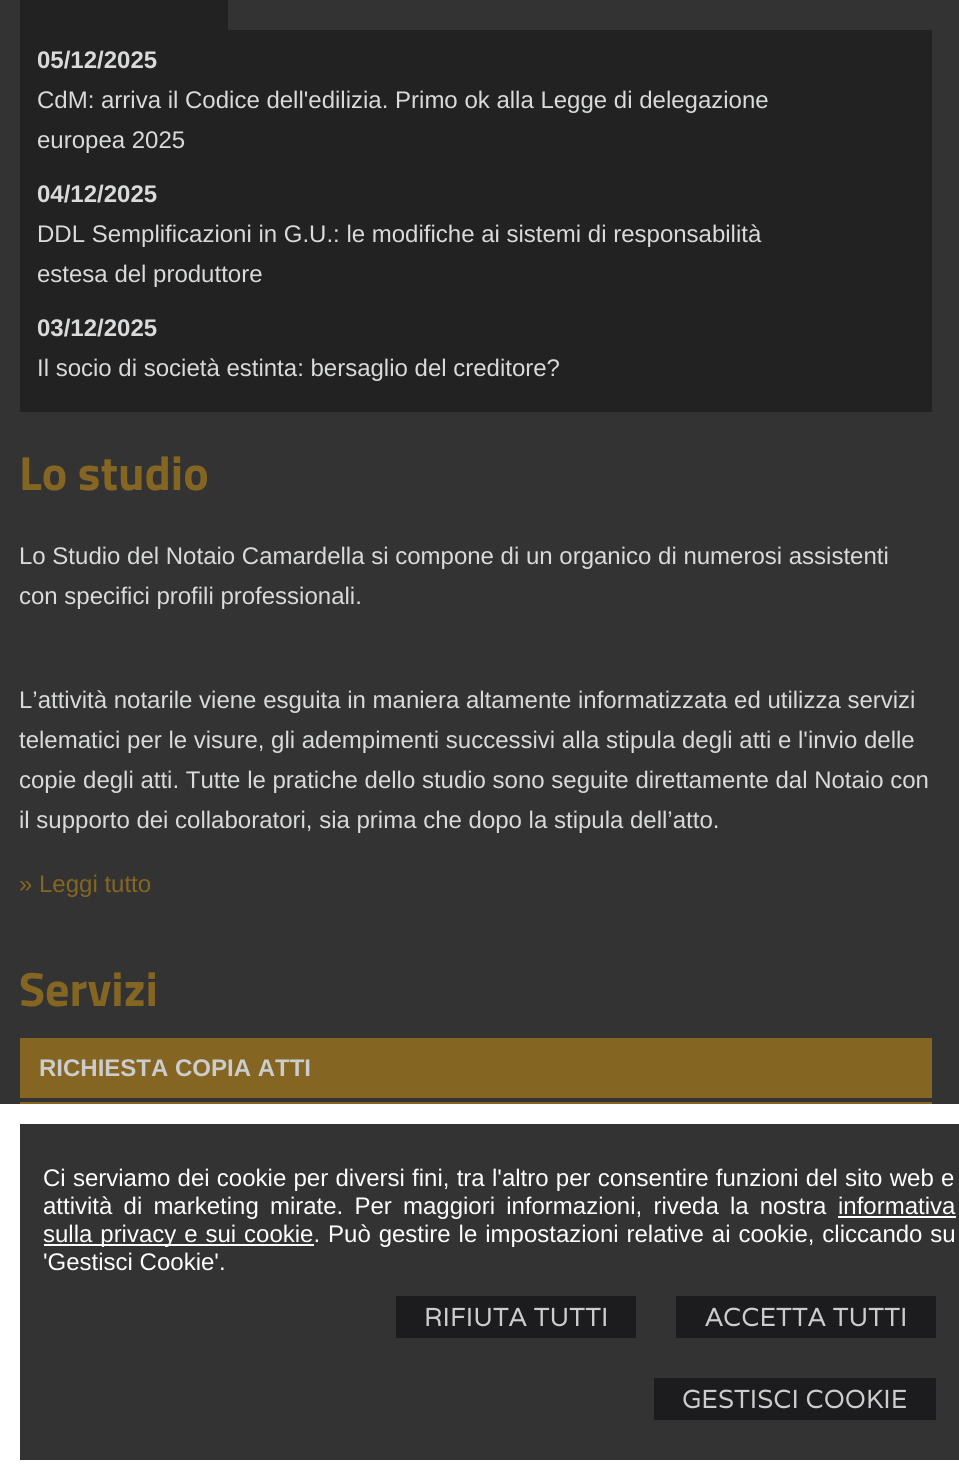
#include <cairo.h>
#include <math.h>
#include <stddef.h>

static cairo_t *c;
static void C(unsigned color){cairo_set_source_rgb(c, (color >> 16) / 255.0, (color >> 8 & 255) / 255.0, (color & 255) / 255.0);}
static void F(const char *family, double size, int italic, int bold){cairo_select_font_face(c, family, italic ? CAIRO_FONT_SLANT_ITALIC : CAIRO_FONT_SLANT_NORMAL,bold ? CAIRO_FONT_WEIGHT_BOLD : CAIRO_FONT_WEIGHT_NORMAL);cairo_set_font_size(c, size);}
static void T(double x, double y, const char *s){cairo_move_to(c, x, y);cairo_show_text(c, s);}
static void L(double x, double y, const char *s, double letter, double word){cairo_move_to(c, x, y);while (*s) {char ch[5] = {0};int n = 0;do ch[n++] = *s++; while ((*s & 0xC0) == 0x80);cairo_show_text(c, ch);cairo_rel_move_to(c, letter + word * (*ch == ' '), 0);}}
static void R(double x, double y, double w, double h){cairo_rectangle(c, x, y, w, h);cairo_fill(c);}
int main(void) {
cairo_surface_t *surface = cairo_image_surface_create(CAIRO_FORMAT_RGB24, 959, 1480);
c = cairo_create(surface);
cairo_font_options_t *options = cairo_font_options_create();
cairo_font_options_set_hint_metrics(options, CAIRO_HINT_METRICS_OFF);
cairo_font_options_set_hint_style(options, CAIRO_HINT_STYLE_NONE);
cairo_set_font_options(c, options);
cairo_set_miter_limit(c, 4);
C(0x333333);
cairo_paint(c);
C(0x222222);
R(20,0,208,30);
R(20,30,912,382);
F("Liberation Sans",24,0,1);
C(0xd9dadb);
T(37,68,"05/12/2025");
F("Liberation Sans",24,0,0);
T(37,108,"CdM: arriva il Codice dell'edilizia. Primo ok alla Legge di delegazione");
T(37,148,"europea 2025");
F("Liberation Sans",24,0,1);
T(37,202,"04/12/2025");
F("Liberation Sans",24,0,0);
T(37,242,"DDL Semplificazioni in G.U.: le modifiche ai sistemi di responsabilità");
T(37,282,"estesa del produttore");
F("Liberation Sans",24,0,1);
T(37,336,"03/12/2025");
F("Liberation Sans",24,0,0);
T(37,376,"Il socio di società estinta: bersaglio del creditore?");
F("Titillium Web",48,0,1);
C(0x846622);
T(19,490,"Lo studio");
F("Liberation Sans",24,0,0);
C(0xd9dadb);
T(19,564,"Lo Studio del Notaio Camardella si compone di un organico di numerosi assistenti");
T(19,604,"con specifici profili professionali.");
T(19,708,"L’attività notarile viene esguita in maniera altamente informatizzata ed utilizza servizi");
T(19,748,"telematici per le visure, gli adempimenti successivi alla stipula degli atti e l'invio delle");
T(19,788,"copie degli atti. Tutte le pratiche dello studio sono seguite direttamente dal Notaio con");
T(19,828,"il supporto dei collaboratori, sia prima che dopo la stipula dell’atto.");
C(0x846622);
T(19,892,"» Leggi tutto");
F("Titillium Web",48,0,1);
T(19,1006,"Servizi");
R(20,1038,912,60);
F("Liberation Sans",24,0,1);
C(0xcccccc);
T(39,1076,"RICHIESTA COPIA ATTI");
C(0x846622);
R(20,1102,912,2);
C(0xffffff);
R(0,1104,959,376);
C(0x333333);
R(20,1124,939,336);
F("Liberation Sans",24,0,0);
C(0xffffff);
L(43,1186,"Ci serviamo dei cookie per diversi fini, tra l'altro per consentire funzioni del sito web e",0,.6);
L(43,1214,"attività di marketing mirate. Per maggiori informazioni, riveda la nostra",0,4.5);
T(838,1214,"informativa");
R(838,1216,118,2);
R(44,1244,270,2);
L(43,1242,"sulla privacy e sui cookie. Può gestire le impostazioni relative ai cookie, cliccando su",0,1.25);
T(43,1270,"'Gestisci Cookie'.");
C(0x1c1c1e);
R(396,1296,240,42);
F("Varela",26,0,0);
C(0xcccccc);
T(424,1326,"RIFIUTA TUTTI");
C(0x1c1c1e);
R(676,1296,260,42);
C(0xcccccc);
T(705,1326,"ACCETTA TUTTI");
C(0x1c1c1e);
R(654,1378,282,42);
C(0xcccccc);
T(682,1408,"GESTISCI COOKIE");
cairo_surface_write_to_png(surface, "o.png");
cairo_font_options_destroy(options);
cairo_destroy(c);
cairo_surface_destroy(surface);
return 0;
}
